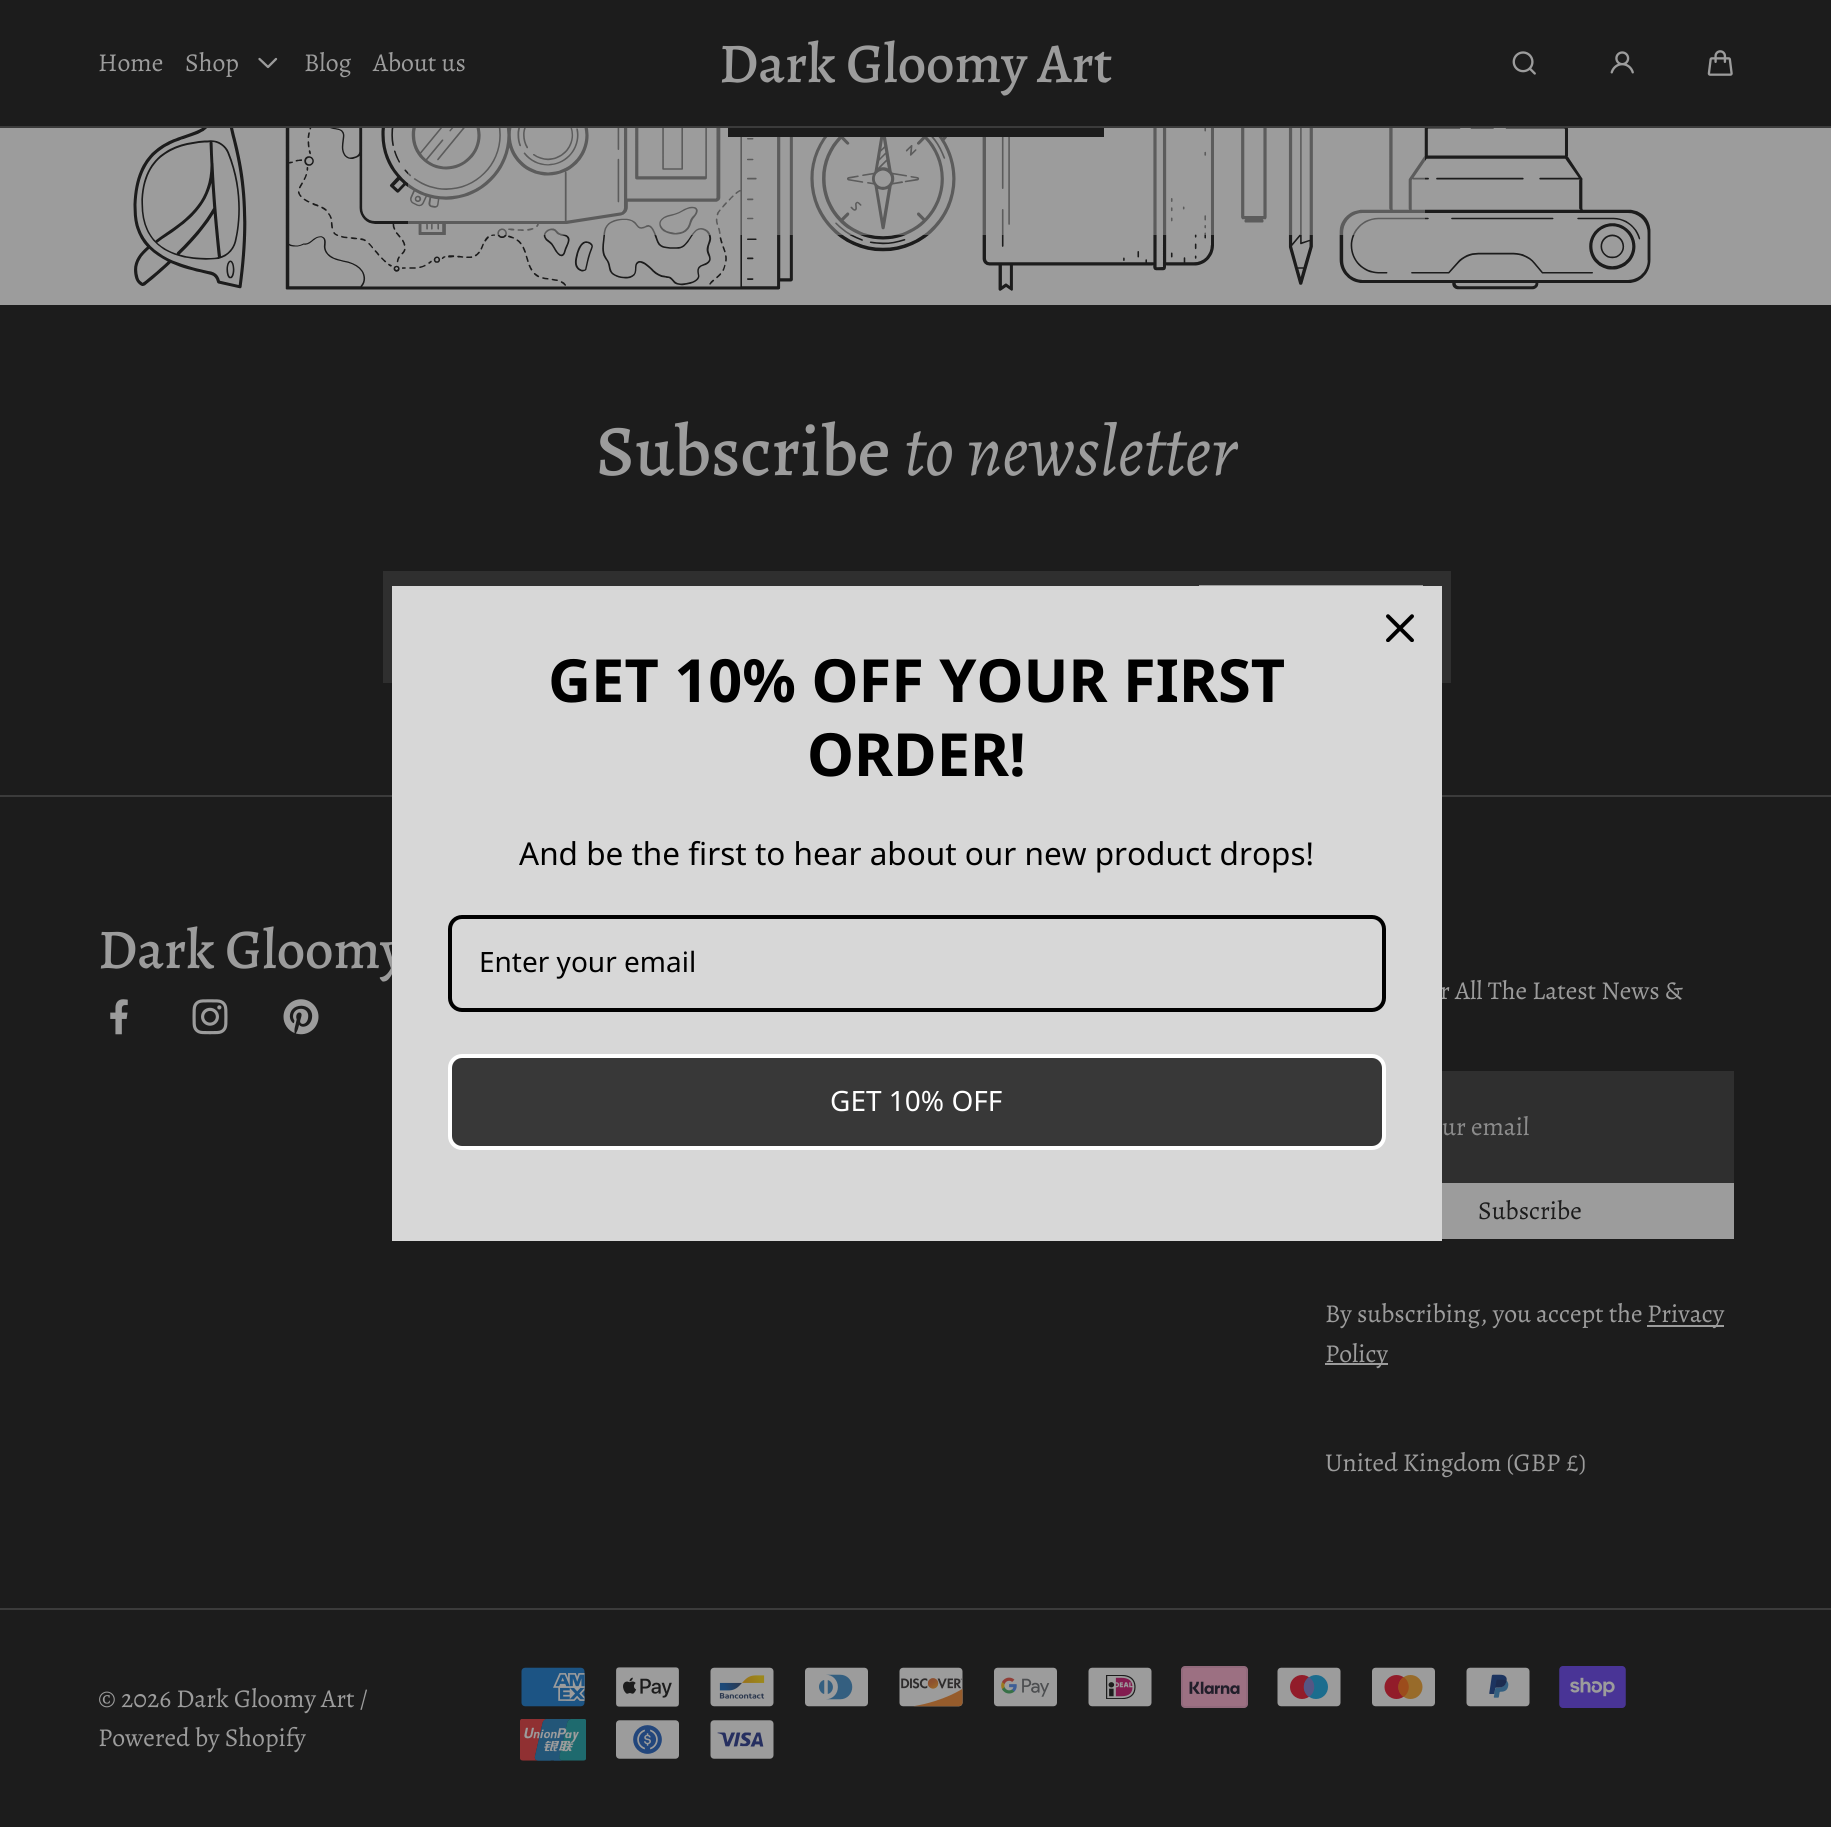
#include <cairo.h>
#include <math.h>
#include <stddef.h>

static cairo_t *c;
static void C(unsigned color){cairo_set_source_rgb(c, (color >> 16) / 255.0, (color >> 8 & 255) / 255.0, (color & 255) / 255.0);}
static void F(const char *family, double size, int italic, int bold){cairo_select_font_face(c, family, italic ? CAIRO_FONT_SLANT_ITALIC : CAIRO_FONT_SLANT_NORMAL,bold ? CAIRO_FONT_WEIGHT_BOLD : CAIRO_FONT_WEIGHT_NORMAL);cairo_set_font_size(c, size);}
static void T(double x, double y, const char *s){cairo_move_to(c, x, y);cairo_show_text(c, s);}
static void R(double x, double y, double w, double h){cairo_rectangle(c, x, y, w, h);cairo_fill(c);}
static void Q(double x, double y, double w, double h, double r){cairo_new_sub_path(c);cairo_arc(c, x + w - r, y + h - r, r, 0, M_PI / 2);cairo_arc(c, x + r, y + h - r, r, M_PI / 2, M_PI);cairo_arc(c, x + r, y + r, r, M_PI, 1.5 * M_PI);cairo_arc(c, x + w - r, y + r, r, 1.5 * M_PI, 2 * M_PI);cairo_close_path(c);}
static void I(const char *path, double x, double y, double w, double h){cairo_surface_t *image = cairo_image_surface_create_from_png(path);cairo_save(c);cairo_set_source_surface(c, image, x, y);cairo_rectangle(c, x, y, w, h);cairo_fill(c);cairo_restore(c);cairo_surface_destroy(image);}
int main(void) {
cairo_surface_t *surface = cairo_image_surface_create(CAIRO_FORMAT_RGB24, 1831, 1827);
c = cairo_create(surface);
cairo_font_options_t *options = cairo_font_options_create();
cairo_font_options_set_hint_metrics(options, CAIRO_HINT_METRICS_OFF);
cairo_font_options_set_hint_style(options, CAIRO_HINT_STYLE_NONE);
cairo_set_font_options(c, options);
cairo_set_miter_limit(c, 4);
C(0x9c9c9c);
cairo_paint(c);
C(0x1c1c1c);
R(0,0,1831,126);
C(0x3b3b3b);
R(0,126,1831,2);
F("Alegreya",25.75,0,0);
C(0x9c9c9c);
T(98,71,"Home");
T(185,71,"Shop");
cairo_new_path(c);
cairo_move_to(c,259.5,59);
cairo_line_to(c,268,67);
cairo_line_to(c,276,59);
cairo_set_line_width(c,2.3);
cairo_set_line_cap(c,CAIRO_LINE_CAP_ROUND);
cairo_set_line_join(c,CAIRO_LINE_JOIN_ROUND);
cairo_stroke(c);
T(304,71,"Blog");
T(373,71,"About us");
F("Alegreya Medium",56.25,0,0);
T(719,82,"Dark Gloomy Art");
I("1.png",1512,51,24,24);
I("2.png",1610,51,24,23);
I("3.png",1707,50,26,26);
I("4.png",133,128,1518,163);
cairo_set_source_rgba(c,0.612,0.612,0.612,0.5);
R(408,128,1017,107);
C(0x1c1c1c);
R(728,128,376,9);
R(0,305,1831,490);
F("Alegreya Medium",72.5,0,0);
C(0x9c9c9c);
T(596,475,"Subscribe");
F("Alegreya",72.5,1,0);
T(904,475,"to newsletter");
C(0x2f2f2f);
R(383,571,1068,112);
C(0x9c9c9c);
R(1199,585,224,1);
C(0x1c1c1c);
R(0,797,1831,811);
C(0x3b3b3b);
R(0,795,1831,2);
F("Alegreya Medium",56.25,0,0);
C(0x9c9c9c);
T(98,968,"Dark Gloomy");
F("Alegreya",25.75,0,0);
T(1440,999,"r All The Latest News &");
C(0xd7d7d7);
R(392,586,1050,655);
I("5.png",1386,614,28,28);
F("Noto Sans",59.5,0,1);
C(0x000000);
T(548,702,"GET 10% OFF YOUR FIRST");
T(807,776,"ORDER!");
F("Noto Sans",31.5,0,0);
T(519,865,"And be the first to hear about our new product drops!");
Q(450,917,934,93,12);
cairo_set_line_width(c,4);
cairo_set_line_cap(c,CAIRO_LINE_CAP_BUTT);
cairo_set_line_join(c,CAIRO_LINE_JOIN_MITER);
cairo_stroke(c);
F("Noto Sans",28,0,0);
T(479,972,"Enter your email");
C(0x383838);
Q(450,1056,934,92,12);
cairo_fill_preserve(c);
C(0xffffff);
cairo_stroke(c);
T(830,1111,"GET 10% OFF");
I("6.png",110,999,18,36);
I("7.png",192,999,36,36);
I("8.png",283,999,36,36);
C(0x2f2f2f);
R(1442,1071,292,112);
F("Alegreya",25.75,0,0);
C(0x8c8c8c);
T(1442,1135,"ur email");
C(0x9c9c9c);
R(1442,1183,292,56);
C(0x1c1c1c);
T(1478,1219,"Subscribe");
C(0x9c9c9c);
T(1325,1322,"By subscribing, you accept the");
R(1647,1325,77,2);
T(1647,1322,"Privacy");
R(1325,1363,63,2);
T(1325,1362,"Policy");
T(1325,1471,"United Kingdom (GBP £)");
C(0x1c1c1c);
R(0,1610,1831,217);
C(0x3b3b3b);
R(0,1608,1831,2);
C(0x9c9c9c);
T(98,1707,"© 2026 Dark Gloomy Art /");
T(98,1746,"Powered by Shopify");
I("9.png",521,1667,64,40);
I("10.png",616,1667,63,40);
I("11.png",710,1667,64,40);
I("12.png",805,1667,63,40);
I("13.png",899,1667,64,40);
I("14.png",994,1667,63,40);
I("15.png",1088,1667,64,40);
I("16.png",1181,1666,67,42);
I("17.png",1277,1667,64,40);
I("18.png",1372,1667,63,40);
I("19.png",1466,1667,64,40);
I("20.png",1559,1666,67,42);
I("21.png",520,1719,66,42);
I("22.png",616,1720,63,39);
I("23.png",710,1720,64,39);
cairo_surface_write_to_png(surface, "o.png");
cairo_font_options_destroy(options);
cairo_destroy(c);
cairo_surface_destroy(surface);
return 0;
}
